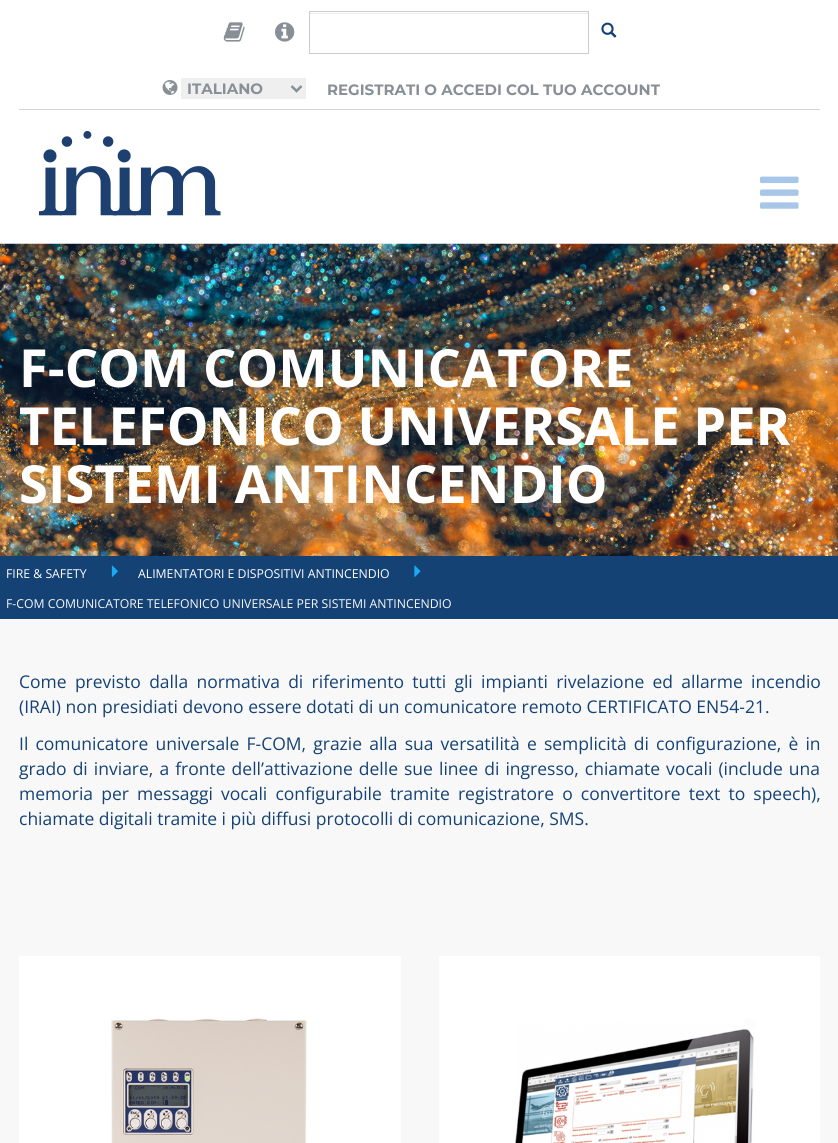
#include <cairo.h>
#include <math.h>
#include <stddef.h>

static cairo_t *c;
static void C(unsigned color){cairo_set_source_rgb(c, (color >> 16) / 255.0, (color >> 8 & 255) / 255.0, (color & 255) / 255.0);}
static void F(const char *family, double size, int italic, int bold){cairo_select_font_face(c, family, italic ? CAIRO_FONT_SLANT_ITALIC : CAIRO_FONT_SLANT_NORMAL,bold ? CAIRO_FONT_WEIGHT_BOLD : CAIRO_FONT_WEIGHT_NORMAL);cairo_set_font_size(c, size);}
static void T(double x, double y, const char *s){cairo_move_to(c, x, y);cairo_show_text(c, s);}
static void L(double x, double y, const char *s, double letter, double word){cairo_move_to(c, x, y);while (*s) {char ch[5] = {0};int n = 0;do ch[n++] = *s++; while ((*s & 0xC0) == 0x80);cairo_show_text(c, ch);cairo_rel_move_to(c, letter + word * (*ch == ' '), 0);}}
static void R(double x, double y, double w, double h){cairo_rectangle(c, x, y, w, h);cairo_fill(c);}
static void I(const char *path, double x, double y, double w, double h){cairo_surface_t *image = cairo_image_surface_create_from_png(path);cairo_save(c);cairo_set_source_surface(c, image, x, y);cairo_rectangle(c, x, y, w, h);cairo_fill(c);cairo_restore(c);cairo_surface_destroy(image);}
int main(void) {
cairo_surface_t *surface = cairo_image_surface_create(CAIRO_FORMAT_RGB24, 838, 1143);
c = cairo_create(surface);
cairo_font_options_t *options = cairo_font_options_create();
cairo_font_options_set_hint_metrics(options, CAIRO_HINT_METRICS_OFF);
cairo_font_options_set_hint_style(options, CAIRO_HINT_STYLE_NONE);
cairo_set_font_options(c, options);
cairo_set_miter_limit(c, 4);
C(0xffffff);
cairo_paint(c);
C(0xd4d4d4);
R(19,109,801,1);
I("1.png",223,22,22,20);
I("2.png",275,22,20,20);
C(0xececec);
R(310,13,278,1);
cairo_rectangle(c,309.5,11.5,279,42);
C(0xcccccc);
cairo_set_line_width(c,1);
cairo_stroke(c);
I("3.png",601,22,16,16);
I("4.png",162,80,16,15);
C(0xefefef);
R(181,78,125,21);
cairo_new_path(c);
cairo_move_to(c,291.5,86);
cairo_line_to(c,296.5,91);
cairo_line_to(c,301.5,86);
C(0x888f96);
cairo_set_line_width(c,2.5);
cairo_stroke(c);
F("Montserrat",15,0,1);
T(187,94,"ITALIANO");
T(327,95,"REGISTRATI O ACCEDI COL TUO ACCOUNT");
I("5.png",39,130,182,86);
I("6.png",760,176,39,33);
I("7.png",0,243,838,313);
F("Open Sans",52.5,0,1);
C(0xffffff);
T(19,387,"F-COM COMUNICATORE");
T(19,445,"TELEFONICO UNIVERSALE PER");
T(19,503,"SISTEMI ANTINCENDIO");
C(0x154275);
R(0,556,838,63);
F("Open Sans",12.25,0,0);
C(0xffffff);
T(6,578,"FIRE & SAFETY");
I("8.png",111,565,7,12);
T(138,578,"ALIMENTATORI E DISPOSITIVI ANTINCENDIO");
I("9.png",414,565,7,12);
C(0xf8f8f8);
T(6,608,"F-COM COMUNICATORE TELEFONICO UNIVERSALE PER SISTEMI ANTINCENDIO");
R(0,619,838,524);
F("Open Sans",17.5,0,0);
C(0x154275);
L(19,688,"Come previsto dalla normativa di riferimento tutti gli impianti rivelazione ed allarme incendio",0,3.75);
T(19,713,"(IRAI) non presidiati devono essere dotati di un comunicatore remoto CERTIFICATO EN54-21.");
L(19,750,"Il comunicatore universale F-COM, grazie alla sua versatilità e semplicità di configurazione, è in",0,2.6);
L(19,775,"grado di inviare, a fronte dell’attivazione delle sue linee di ingresso, chiamate vocali (include una",0,1.5);
L(19,800,"memoria per messaggi vocali configurabile tramite registratore o convertitore text to speech),",0,3.6);
T(19,825,"chiamate digitali tramite i più diffusi protocolli di comunicazione, SMS.");
C(0xffffff);
R(19,956,382,187);
I("10.png",111,1018,196,125);
R(439,956,381,187);
I("11.png",515,1018,241,125);
cairo_surface_write_to_png(surface, "o.png");
cairo_font_options_destroy(options);
cairo_destroy(c);
cairo_surface_destroy(surface);
return 0;
}
